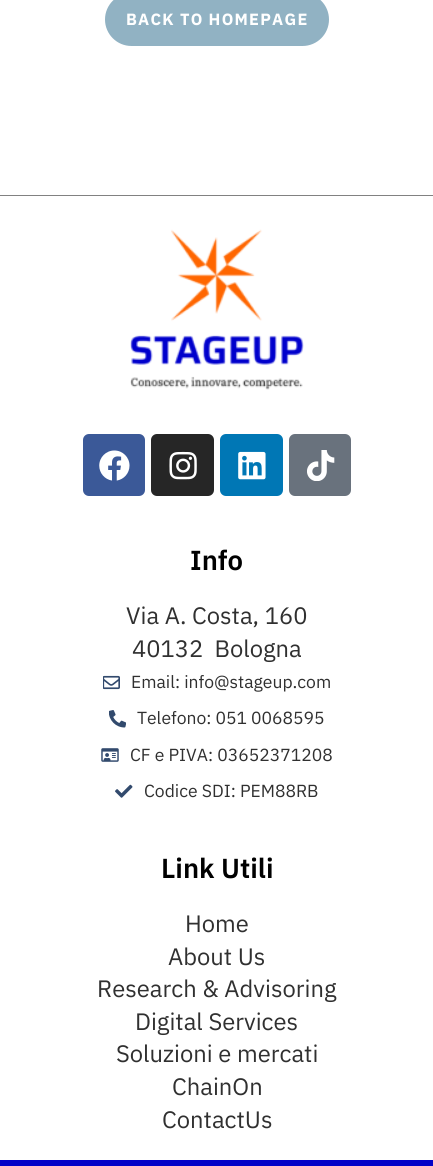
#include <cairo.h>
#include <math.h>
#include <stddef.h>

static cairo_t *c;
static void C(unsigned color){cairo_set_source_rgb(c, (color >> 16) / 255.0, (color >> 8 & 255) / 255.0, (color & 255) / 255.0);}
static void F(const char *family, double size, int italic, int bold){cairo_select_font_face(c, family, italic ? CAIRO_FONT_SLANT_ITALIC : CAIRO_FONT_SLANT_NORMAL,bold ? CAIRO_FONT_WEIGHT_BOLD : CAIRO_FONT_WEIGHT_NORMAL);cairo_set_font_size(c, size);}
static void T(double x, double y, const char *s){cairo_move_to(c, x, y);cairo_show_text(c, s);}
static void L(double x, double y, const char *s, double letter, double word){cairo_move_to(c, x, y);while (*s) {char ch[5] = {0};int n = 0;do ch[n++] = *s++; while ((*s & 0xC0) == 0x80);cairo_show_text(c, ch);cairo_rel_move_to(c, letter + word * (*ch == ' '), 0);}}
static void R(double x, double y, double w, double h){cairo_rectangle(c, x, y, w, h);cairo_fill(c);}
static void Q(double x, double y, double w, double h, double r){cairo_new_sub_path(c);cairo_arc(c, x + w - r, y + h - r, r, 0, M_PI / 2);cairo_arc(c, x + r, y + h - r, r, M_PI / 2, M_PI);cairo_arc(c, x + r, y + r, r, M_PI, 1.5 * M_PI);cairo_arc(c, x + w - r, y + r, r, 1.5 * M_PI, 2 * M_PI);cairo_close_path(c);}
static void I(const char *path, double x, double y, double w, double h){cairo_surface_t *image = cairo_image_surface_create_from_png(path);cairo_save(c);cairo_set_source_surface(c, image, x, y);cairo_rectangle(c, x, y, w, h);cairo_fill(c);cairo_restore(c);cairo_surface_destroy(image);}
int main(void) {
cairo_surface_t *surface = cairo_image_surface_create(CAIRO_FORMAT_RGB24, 433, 1166);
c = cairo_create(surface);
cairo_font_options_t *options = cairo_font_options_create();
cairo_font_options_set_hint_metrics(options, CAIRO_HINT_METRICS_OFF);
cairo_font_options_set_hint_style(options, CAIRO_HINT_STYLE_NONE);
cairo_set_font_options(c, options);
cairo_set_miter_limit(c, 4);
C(0xffffff);
cairo_paint(c);
C(0x91b2c3);
Q(106.5,-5.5,221,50,25);
cairo_fill_preserve(c);
cairo_set_line_width(c,3);
cairo_stroke(c);
F("IBM Plex Sans",16.25,0,1);
C(0xffffff);
L(126,25,"BACK TO HOMEPAGE",1.25,0);
C(0x818181);
R(0,195,433,1);
I("1.png",130,229,174,161);
C(0x3b5998);
Q(83,434,62,62,6);
cairo_fill(c);
I("2.png",99,450,31,31);
C(0x262626);
Q(151,434,63,62,6);
cairo_fill(c);
I("3.png",169,451,28,29);
C(0x0077b5);
Q(220,434,63,62,6);
cairo_fill(c);
I("4.png",238,451,28,29);
C(0x69727d);
Q(289,434,62,62,6);
cairo_fill(c);
I("5.png",307,450,28,31);
F("IBM Plex Sans SemiBold",27.5,0,0);
C(0x000000);
T(190,570,"Info");
F("IBM Plex Sans",23.75,0,0);
C(0x303030);
T(126,624,"Via A. Costa, 160");
T(132,657,"40132  Bologna");
I("6.png",103,675,17,15);
F("IBM Plex Sans",17.5,0,0);
T(131,688,"Email: info@stageup.com");
I("7.png",109,710,17,18);
T(137,724,"Telefono: 051 0068595");
I("8.png",101,748,18,14);
T(130,761,"CF e PIVA: 03652371208");
I("9.png",115,784,18,14);
T(144,797,"Codice SDI: PEM88RB");
F("IBM Plex Sans SemiBold",27.5,0,0);
C(0x000000);
T(161,878,"Link Utili");
F("IBM Plex Sans",23.75,0,0);
C(0x303030);
T(185,932,"Home");
T(168,965,"About Us");
T(97,997,"Research & Advisoring");
T(135,1030,"Digital Services");
T(116,1062,"Soluzioni e mercati");
T(172,1095,"ChainOn");
T(162,1128,"ContactUs");
C(0x0202c7);
R(0,1160,433,6);
cairo_surface_write_to_png(surface, "o.png");
cairo_font_options_destroy(options);
cairo_destroy(c);
cairo_surface_destroy(surface);
return 0;
}
